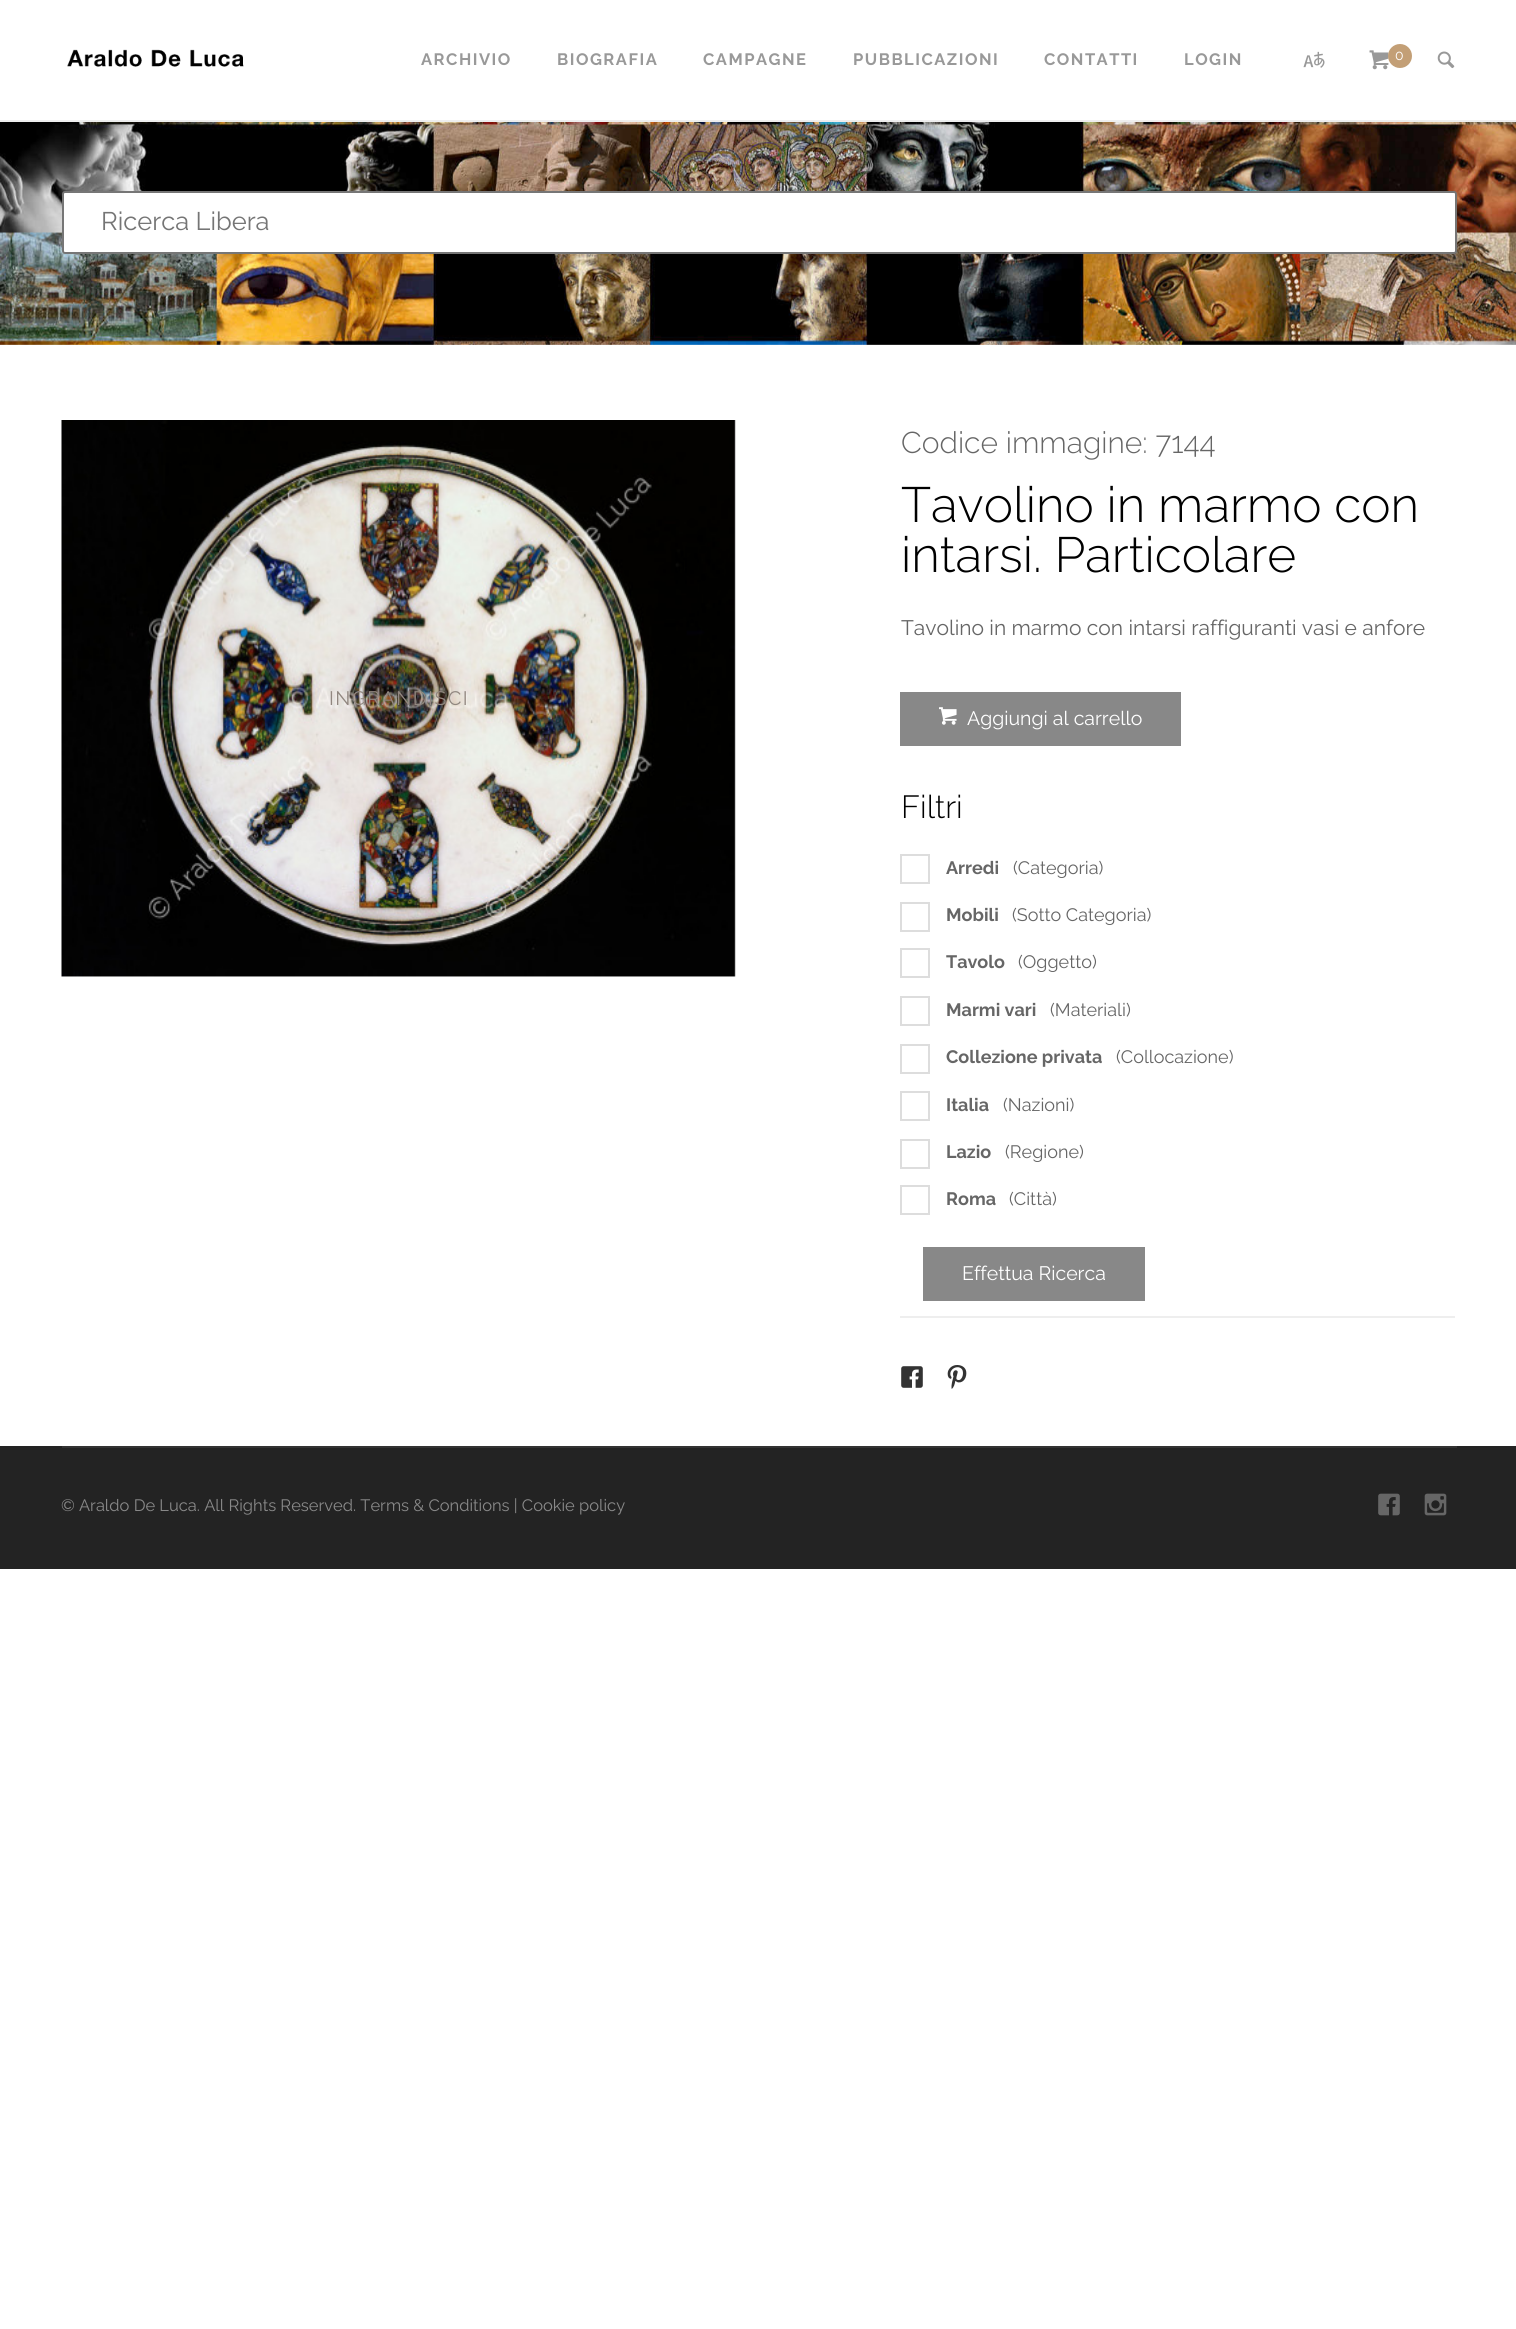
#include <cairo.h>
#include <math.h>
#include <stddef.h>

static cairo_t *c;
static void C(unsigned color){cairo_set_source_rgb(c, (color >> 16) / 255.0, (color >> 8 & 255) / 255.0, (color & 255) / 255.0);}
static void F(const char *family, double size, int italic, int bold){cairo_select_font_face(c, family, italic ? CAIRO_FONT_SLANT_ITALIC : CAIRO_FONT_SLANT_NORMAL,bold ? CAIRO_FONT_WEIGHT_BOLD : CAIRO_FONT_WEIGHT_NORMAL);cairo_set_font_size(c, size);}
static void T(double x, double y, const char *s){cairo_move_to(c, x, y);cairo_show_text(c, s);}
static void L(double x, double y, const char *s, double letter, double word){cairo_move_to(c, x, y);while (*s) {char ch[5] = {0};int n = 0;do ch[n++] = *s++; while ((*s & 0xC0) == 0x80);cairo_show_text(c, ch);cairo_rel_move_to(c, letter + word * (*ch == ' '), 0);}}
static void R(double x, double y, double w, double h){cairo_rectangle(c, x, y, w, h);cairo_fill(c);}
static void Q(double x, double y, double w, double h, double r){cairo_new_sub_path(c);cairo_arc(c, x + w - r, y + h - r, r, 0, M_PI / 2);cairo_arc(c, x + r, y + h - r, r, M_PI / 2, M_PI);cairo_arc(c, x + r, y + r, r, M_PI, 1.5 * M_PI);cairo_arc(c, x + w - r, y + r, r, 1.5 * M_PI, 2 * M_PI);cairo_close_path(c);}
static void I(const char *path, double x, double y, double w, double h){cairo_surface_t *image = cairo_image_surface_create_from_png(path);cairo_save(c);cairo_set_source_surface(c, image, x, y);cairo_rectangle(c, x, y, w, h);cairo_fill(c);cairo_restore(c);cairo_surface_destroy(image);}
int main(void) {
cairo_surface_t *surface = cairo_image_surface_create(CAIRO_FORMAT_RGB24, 1516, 2329);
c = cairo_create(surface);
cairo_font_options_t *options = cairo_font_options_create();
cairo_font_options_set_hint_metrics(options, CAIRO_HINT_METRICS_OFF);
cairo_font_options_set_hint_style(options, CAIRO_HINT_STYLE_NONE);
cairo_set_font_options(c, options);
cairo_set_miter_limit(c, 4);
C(0xffffff);
cairo_paint(c);
C(0xeeeeee);
R(0,120,1516,2);
I("1.png",67,49,177,18);
F("Raleway",16.5,0,1);
C(0x999999);
L(421,65,"ARCHIVIO",1.5,0);
L(557,65,"BIOGRAFIA",1.5,0);
L(703,65,"CAMPAGNE",1.5,0);
L(853,65,"PUBBLICAZIONI",1.5,0);
L(1044,65,"CONTATTI",1.5,0);
L(1184,65,"LOGIN",1.5,0);
I("2.png",1303,51,22,17);
I("3.png",1369,50,20,20);
C(0xc39f76);
cairo_arc(c,1400,56,12,0,2 * M_PI);
cairo_fill(c);
F("Raleway",14,0,0);
C(0xffffff);
T(1395,60,"0");
I("4.png",1437,51,18,18);
I("5.png",0,122,1516,223);
Q(63,192,1393,61,2);
cairo_fill_preserve(c);
C(0x767676);
cairo_stroke(c);
F("Raleway",25.5,0,0);
C(0x757575);
T(101,230,"Ricerca Libera");
I("6.png",61,420,675,557);
F("Raleway",19.5,0,0);
C(0x918780);
L(329,705,"INGRANDISCI",1.5,0);
F("Raleway Light",30,0,0);
C(0x666666);
T(901,453,"Codice immagine: 7144");
F("Raleway Light",49.5,0,0);
C(0x000000);
T(901,522,"Tavolino in marmo con");
T(901,572,"intarsi. Particolare");
F("Raleway",21,0,0);
C(0x666666);
T(901,635,"Tavolino in marmo con intarsi raffiguranti vasi e anfore");
C(0x888888);
R(900,692,281,54);
I("7.png",939,707,18,18);
F("Raleway",19.5,0,0);
C(0xffffff);
T(967,725,"Aggiungi al carrello");
F("Raleway Light",32,0,0);
C(0x000000);
T(901,818,"Filtri");
cairo_rectangle(c,901,855,28,28);
C(0xdddddd);
cairo_stroke(c);
F("Raleway",18,0,1);
C(0x666666);
T(946,874,"Arredi");
F("Raleway",18,0,0);
T(1013,874,"(Categoria)");
cairo_rectangle(c,901,903,28,28);
C(0xdddddd);
cairo_stroke(c);
F("Raleway",18,0,1);
C(0x666666);
T(946,921,"Mobili");
F("Raleway",18,0,0);
T(1012,921,"(Sotto Categoria)");
cairo_rectangle(c,901,949,28,28);
C(0xdddddd);
cairo_stroke(c);
F("Raleway",18,0,1);
C(0x666666);
T(946,968,"Tavolo");
F("Raleway",18,0,0);
T(1018,968,"(Oggetto)");
cairo_rectangle(c,901,997,28,28);
C(0xdddddd);
cairo_stroke(c);
F("Raleway",18,0,1);
C(0x666666);
T(946,1016,"Marmi vari");
F("Raleway",18,0,0);
T(1050,1016,"(Materiali)");
cairo_rectangle(c,901,1045,28,28);
C(0xdddddd);
cairo_stroke(c);
F("Raleway",18,0,1);
C(0x666666);
T(946,1063,"Collezione privata");
F("Raleway",18,0,0);
T(1116,1063,"(Collocazione)");
cairo_rectangle(c,901,1092,28,28);
C(0xdddddd);
cairo_stroke(c);
F("Raleway",18,0,1);
C(0x666666);
T(946,1111,"Italia");
F("Raleway",18,0,0);
T(1003,1111,"(Nazioni)");
cairo_rectangle(c,901,1140,28,28);
C(0xdddddd);
cairo_stroke(c);
F("Raleway",18,0,1);
C(0x666666);
T(946,1158,"Lazio");
F("Raleway",18,0,0);
T(1005,1158,"(Regione)");
cairo_rectangle(c,901,1186,28,28);
C(0xdddddd);
cairo_stroke(c);
F("Raleway",18,0,1);
C(0x666666);
T(946,1205,"Roma");
F("Raleway",18,0,0);
T(1009,1205,"(Città)");
C(0x888888);
R(923,1247,222,54);
F("Raleway",19.5,0,0);
C(0xffffff);
T(962,1280,"Effettua Ricerca");
C(0xeeeeee);
R(900,1316,555,2);
I("8.png",901,1366,22,22);
I("9.png",947,1365,20,24);
C(0x232323);
R(0,1446,1516,123);
C(0x333333);
R(62,1446,1395,2);
F("Raleway",16.5,0,0);
C(0x898989);
T(61,1511,"© Araldo De Luca. All Rights Reserved. Terms & Conditions | Cookie policy");
I("10.png",1378,1493,22,23);
I("11.png",1424,1493,23,23);
cairo_surface_write_to_png(surface, "o.png");
cairo_font_options_destroy(options);
cairo_destroy(c);
cairo_surface_destroy(surface);
return 0;
}
